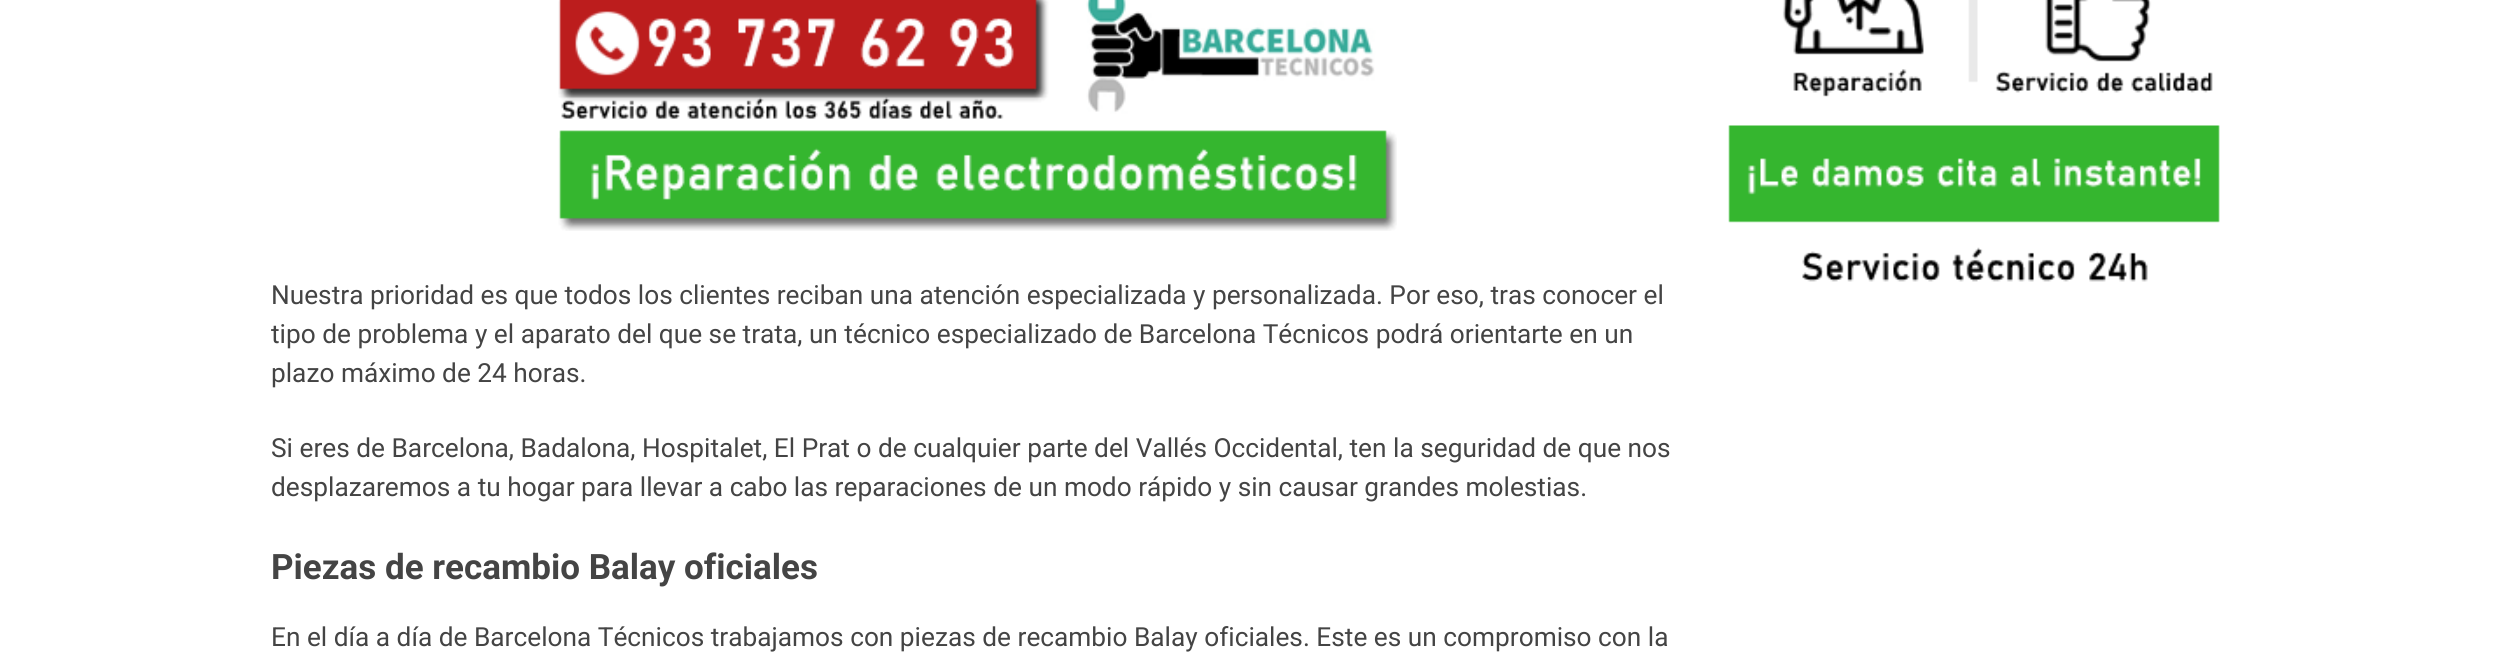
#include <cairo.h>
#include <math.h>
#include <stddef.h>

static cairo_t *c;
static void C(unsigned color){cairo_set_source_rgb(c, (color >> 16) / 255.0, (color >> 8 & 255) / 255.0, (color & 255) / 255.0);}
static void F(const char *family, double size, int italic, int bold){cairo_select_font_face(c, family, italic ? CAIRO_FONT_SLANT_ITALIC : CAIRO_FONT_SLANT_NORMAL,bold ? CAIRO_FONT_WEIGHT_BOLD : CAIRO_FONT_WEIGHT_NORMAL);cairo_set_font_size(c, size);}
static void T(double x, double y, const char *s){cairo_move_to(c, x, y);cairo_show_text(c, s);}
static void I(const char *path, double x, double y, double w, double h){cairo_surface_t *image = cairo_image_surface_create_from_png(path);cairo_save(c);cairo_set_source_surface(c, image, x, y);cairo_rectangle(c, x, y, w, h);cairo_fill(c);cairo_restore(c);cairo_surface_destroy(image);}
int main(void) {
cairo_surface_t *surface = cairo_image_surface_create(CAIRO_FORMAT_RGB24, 2509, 652);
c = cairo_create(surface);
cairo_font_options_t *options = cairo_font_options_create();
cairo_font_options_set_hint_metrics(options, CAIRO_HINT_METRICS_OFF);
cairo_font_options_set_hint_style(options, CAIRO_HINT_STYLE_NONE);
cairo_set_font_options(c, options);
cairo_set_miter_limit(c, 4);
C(0xffffff);
cairo_paint(c);
I("1.png",1728,0,492,282);
I("2.png",558,0,839,231);
F("Roboto",26.25,0,0);
C(0x444444);
T(271,304,"Nuestra prioridad es que todos los clientes reciban una atención especializada y personalizada. Por eso, tras conocer el");
T(271,343,"tipo de problema y el aparato del que se trata, un técnico especializado de Barcelona Técnicos podrá orientarte en un");
T(271,382,"plazo máximo de 24 horas.");
T(271,457,"Si eres de Barcelona, Badalona, Hospitalet, El Prat o de cualquier parte del Vallés Occidental, ten la seguridad de que nos");
T(271,496,"desplazaremos a tu hogar para llevar a cabo las reparaciones de un modo rápido y sin causar grandes molestias.");
F("Roboto",35,0,1);
T(271,579,"Piezas de recambio Balay oficiales");
F("Roboto",26.25,0,0);
T(271,646,"En el día a día de Barcelona Técnicos trabajamos con piezas de recambio Balay oficiales. Este es un compromiso con la");
cairo_surface_write_to_png(surface, "o.png");
cairo_font_options_destroy(options);
cairo_destroy(c);
cairo_surface_destroy(surface);
return 0;
}
